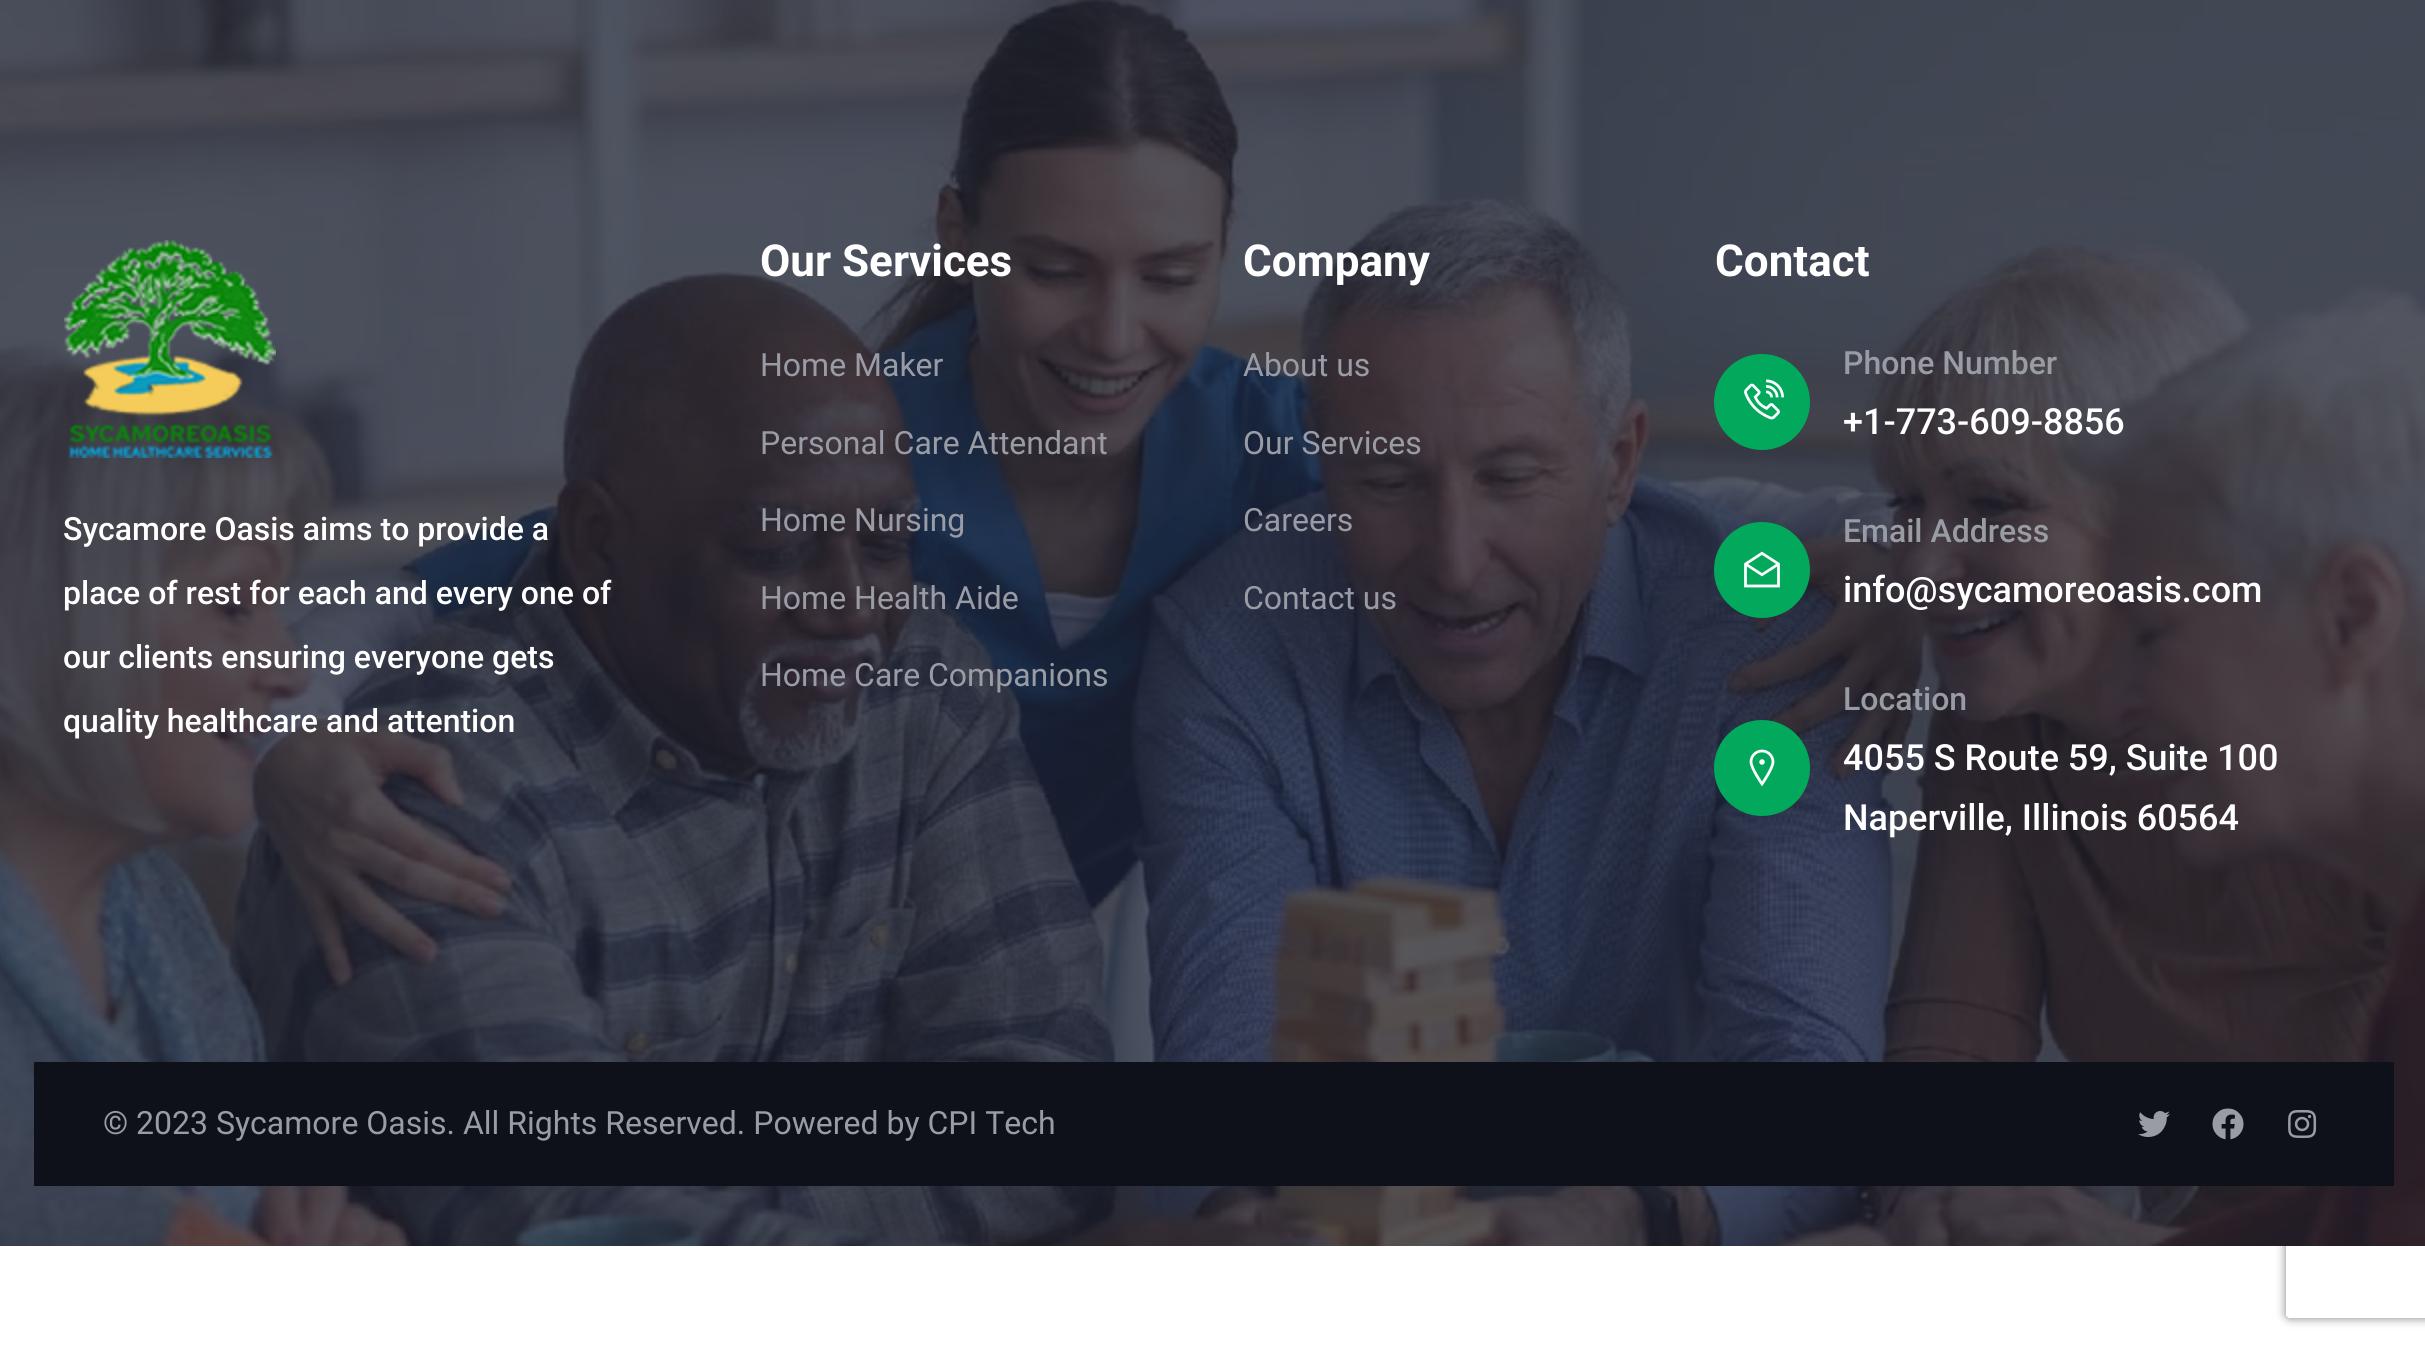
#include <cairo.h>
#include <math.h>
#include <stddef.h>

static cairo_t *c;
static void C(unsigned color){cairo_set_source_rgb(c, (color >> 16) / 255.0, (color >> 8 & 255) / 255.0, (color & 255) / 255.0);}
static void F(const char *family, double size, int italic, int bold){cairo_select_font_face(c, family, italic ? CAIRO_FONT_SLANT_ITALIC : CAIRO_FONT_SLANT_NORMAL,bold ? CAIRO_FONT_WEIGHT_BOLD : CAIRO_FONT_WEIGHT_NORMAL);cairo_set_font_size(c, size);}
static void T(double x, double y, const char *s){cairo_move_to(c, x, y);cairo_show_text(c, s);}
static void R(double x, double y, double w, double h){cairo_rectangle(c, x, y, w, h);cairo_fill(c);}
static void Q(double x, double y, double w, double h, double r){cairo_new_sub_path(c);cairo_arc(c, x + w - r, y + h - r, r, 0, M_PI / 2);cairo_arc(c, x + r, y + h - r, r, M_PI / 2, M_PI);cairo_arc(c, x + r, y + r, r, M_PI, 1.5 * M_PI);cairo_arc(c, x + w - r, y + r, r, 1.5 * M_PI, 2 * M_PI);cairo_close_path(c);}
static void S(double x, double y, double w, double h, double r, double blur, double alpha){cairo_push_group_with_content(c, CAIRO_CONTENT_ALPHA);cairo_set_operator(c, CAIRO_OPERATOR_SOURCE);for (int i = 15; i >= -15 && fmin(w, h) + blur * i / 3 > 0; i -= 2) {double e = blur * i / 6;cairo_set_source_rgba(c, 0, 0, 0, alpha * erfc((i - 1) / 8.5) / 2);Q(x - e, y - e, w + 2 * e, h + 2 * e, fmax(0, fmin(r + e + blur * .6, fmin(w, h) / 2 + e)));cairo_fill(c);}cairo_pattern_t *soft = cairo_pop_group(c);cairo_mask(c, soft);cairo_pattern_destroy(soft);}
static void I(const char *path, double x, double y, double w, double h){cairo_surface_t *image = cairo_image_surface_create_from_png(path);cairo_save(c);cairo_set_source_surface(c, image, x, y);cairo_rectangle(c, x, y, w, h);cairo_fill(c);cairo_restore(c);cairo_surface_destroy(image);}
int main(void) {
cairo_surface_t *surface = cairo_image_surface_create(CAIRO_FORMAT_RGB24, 2425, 1345);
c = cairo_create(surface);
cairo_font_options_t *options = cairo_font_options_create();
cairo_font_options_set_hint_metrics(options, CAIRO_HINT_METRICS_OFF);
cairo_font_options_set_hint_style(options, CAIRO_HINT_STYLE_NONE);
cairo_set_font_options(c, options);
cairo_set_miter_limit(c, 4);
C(0xffffff);
cairo_paint(c);
cairo_save(c);
cairo_set_fill_rule(c,CAIRO_FILL_RULE_EVEN_ODD);
cairo_new_path(c);
cairo_move_to(c,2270,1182);
cairo_line_to(c,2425,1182);
cairo_line_to(c,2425,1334);
cairo_line_to(c,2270,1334);
cairo_close_path(c);
cairo_move_to(c,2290,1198);
cairo_line_to(c,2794,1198);
cairo_curve_to(c,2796,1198,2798,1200,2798,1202);
cairo_line_to(c,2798,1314);
cairo_curve_to(c,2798,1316,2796,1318,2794,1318);
cairo_line_to(c,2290,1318);
cairo_curve_to(c,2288,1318,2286,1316,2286,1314);
cairo_line_to(c,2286,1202);
cairo_curve_to(c,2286,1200,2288,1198,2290,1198);
cairo_close_path(c);
cairo_clip(c);
C(0x808080);
S(2286,1198,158,120,4,5,1);
cairo_restore(c);
I("1.png",0,0,2425,1246);
I("2.png",64,240,212,218);
F("Roboto Medium",32,0,0);
C(0xffffff);
T(63,540,"Sycamore Oasis aims to provide a");
T(63,604,"place of rest for each and every one of");
T(63,668,"our clients ensuring everyone gets");
T(63,732,"quality healthcare and attention");
F("Roboto",44,0,1);
T(760,276,"Our Services");
F("Roboto",32,0,0);
C(0x999ca5);
T(760,376,"Home Maker");
T(760,454,"Personal Care Attendant");
T(760,531,"Home Nursing");
T(760,609,"Home Health Aide");
T(760,686,"Home Care Companions");
F("Roboto",44,0,1);
C(0xffffff);
T(1243,276,"Company");
F("Roboto",32,0,0);
C(0x999ca5);
T(1243,376,"About us");
T(1243,454,"Our Services");
T(1243,531,"Careers");
T(1243,609,"Contact us");
F("Roboto",44,0,1);
C(0xffffff);
T(1715,276,"Contact");
C(0x02a95c);
cairo_new_path(c);
cairo_arc(c,1762,402,48,0,2 * M_PI);
cairo_fill(c);
I("3.png",1744,379,40,41);
F("Roboto Medium",32,0,0);
C(0x999ca5);
T(1843,374,"Phone Number");
F("Roboto Medium",36,0,0);
C(0xffffff);
T(1843,434,"+1-773-609-8856");
C(0x02a95c);
cairo_new_path(c);
cairo_arc(c,1762,570,48,0,2 * M_PI);
cairo_fill(c);
I("4.png",1744,551,36,37);
F("Roboto Medium",32,0,0);
C(0x999ca5);
T(1843,542,"Email Address");
F("Roboto Medium",36,0,0);
C(0xffffff);
T(1843,602,"info@sycamoreoasis.com");
C(0x02a95c);
cairo_new_path(c);
cairo_arc(c,1762,768,48,0,2 * M_PI);
cairo_fill(c);
I("5.png",1749,749,26,38);
F("Roboto Medium",32,0,0);
C(0x999ca5);
T(1843,710,"Location");
F("Roboto Medium",36,0,0);
C(0xffffff);
T(1843,770,"4055 S Route 59, Suite 100");
T(1843,830,"Naperville, Illinois 60564");
C(0x0f111a);
R(34,1062,2360,124);
F("Roboto",32,0,0);
C(0x999ca5);
T(103,1134,"© 2023 Sycamore Oasis. All Rights Reserved. Powered by CPI Tech");
I("6.png",2138,1111,32,26);
I("7.png",2212,1108,32,32);
I("8.png",2288,1110,29,28);
cairo_surface_write_to_png(surface, "o.png");
cairo_font_options_destroy(options);
cairo_destroy(c);
cairo_surface_destroy(surface);
return 0;
}
